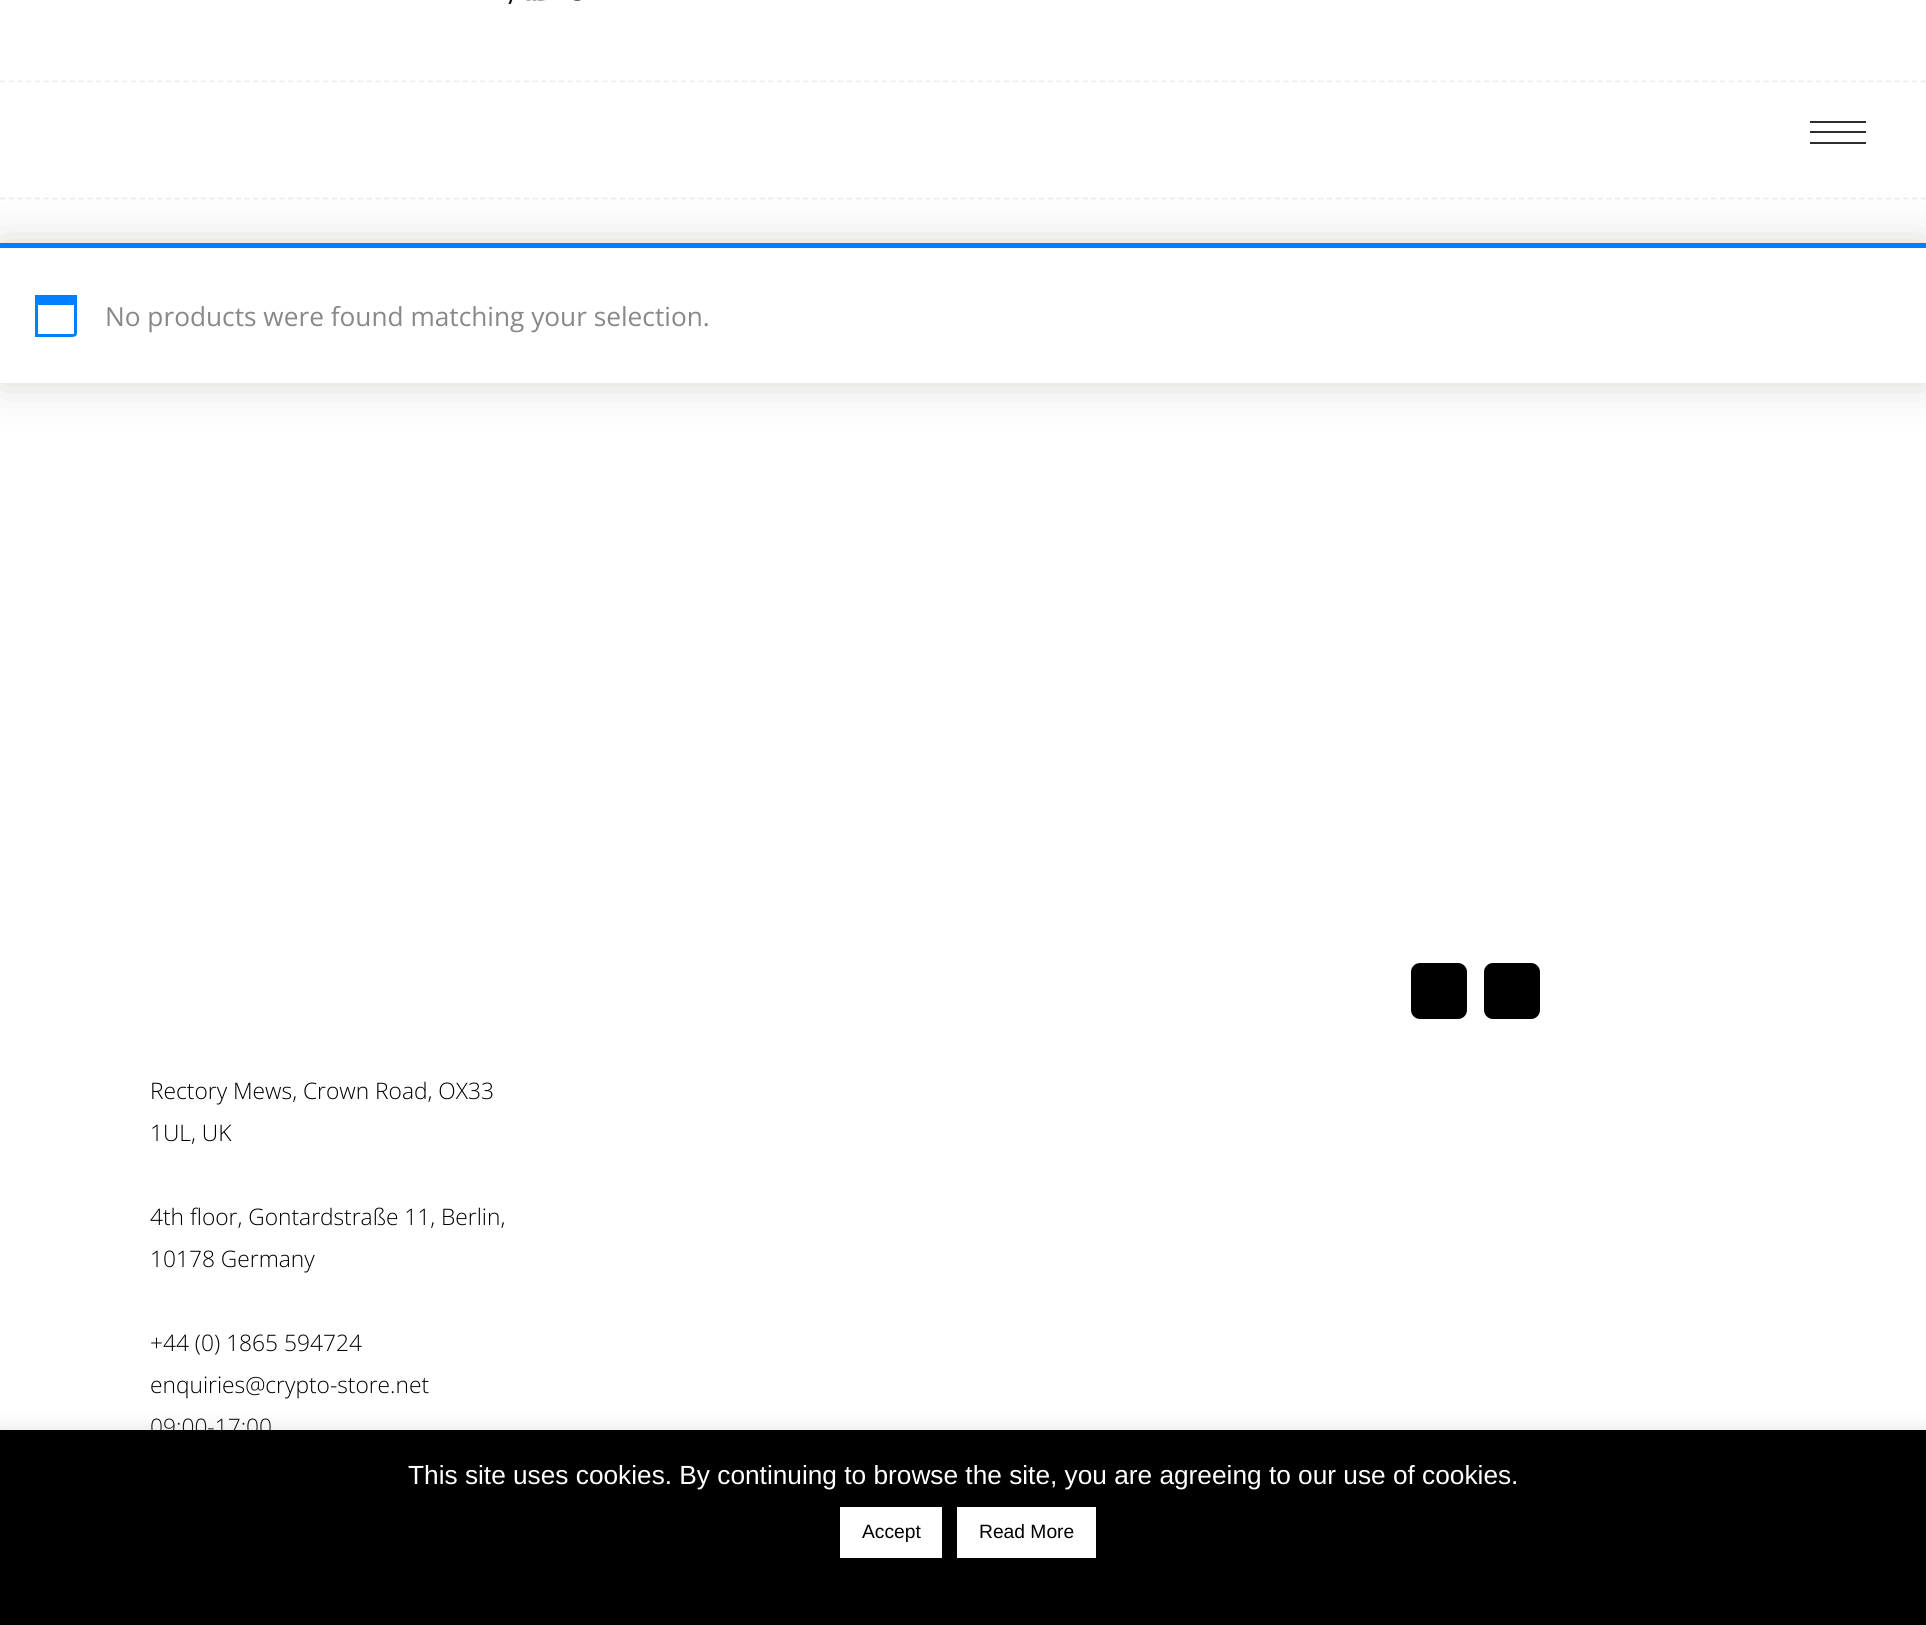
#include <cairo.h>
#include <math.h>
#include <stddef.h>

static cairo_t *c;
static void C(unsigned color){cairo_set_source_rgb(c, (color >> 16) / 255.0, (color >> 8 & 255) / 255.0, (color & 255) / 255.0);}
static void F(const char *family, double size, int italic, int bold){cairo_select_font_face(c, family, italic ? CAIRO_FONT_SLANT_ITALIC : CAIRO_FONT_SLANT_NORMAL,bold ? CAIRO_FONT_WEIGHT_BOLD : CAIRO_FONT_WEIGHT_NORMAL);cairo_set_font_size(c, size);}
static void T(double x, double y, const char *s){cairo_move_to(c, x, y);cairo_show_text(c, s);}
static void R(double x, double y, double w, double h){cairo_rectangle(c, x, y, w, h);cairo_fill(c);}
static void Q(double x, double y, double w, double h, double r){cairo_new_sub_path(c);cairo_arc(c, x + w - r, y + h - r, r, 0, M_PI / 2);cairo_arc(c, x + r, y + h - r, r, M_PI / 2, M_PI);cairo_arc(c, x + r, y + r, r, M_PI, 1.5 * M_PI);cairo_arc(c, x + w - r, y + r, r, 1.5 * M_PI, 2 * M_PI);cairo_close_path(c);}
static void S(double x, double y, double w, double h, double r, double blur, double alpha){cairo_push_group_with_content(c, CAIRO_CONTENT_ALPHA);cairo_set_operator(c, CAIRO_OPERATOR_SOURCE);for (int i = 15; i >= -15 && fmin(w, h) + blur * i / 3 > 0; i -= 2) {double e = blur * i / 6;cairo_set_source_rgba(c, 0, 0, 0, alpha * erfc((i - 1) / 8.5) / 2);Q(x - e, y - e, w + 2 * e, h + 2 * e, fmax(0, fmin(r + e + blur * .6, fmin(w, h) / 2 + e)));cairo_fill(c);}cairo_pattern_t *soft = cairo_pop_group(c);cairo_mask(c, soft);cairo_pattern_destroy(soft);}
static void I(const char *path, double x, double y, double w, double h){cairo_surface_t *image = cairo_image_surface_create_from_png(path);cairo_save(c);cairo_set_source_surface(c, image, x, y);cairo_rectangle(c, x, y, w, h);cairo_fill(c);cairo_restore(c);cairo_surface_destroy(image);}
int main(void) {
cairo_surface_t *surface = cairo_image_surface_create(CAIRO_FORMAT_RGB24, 1926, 1625);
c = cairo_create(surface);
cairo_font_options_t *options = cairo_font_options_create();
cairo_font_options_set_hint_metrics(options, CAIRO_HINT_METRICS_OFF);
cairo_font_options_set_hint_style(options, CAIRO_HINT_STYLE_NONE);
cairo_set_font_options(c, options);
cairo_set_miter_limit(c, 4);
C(0xffffff);
cairo_paint(c);
cairo_new_path(c);
cairo_move_to(c,0,198.5);
cairo_line_to(c,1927,198.5);
C(0xededed);
cairo_set_line_width(c,1.8);
cairo_set_dash(c,(double[]){5.25,3.48},2,0);
cairo_stroke(c);
I("1.png",508,0,73,5);
cairo_new_path(c);
cairo_move_to(c,0,81.5);
cairo_line_to(c,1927,81.5);
cairo_stroke(c);
C(0x2d2d2d);
R(1810,121,56,2);
R(1810,131,56,2);
R(1810,142,56,2);
C(0x1f1c16);
S(0,243,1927,140,0,22,.18);
C(0xffffff);
R(0,248,1926,135);
C(0x0080ff);
R(0,243,1926,5);
cairo_new_path(c);
cairo_move_to(c,74,305);
cairo_line_to(c,38,305);
cairo_line_to(c,38,334);
cairo_line_to(c,74,334);
cairo_close_path(c);
cairo_move_to(c,77,295);
cairo_line_to(c,77,327);
cairo_curve_to(c,77,337,78,337,67,337);
cairo_line_to(c,35,337);
cairo_line_to(c,35,295);
cairo_close_path(c);
cairo_fill(c);
F("Open Sans",26.25,0,0);
C(0x888888);
T(105,326,"No products were found matching your selection.");
C(0x000000);
Q(1411,963,56,56,9);
cairo_fill(c);
Q(1484,963,56,56,9);
cairo_fill(c);
F("Open Sans Light",22.75,0,0);
T(150,1099,"Rectory Mews, Crown Road, OX33");
T(150,1141,"1UL, UK");
T(150,1225,"4th floor, Gontardstraße 11, Berlin,");
T(150,1267,"10178 Germany");
T(150,1351,"+44 (0) 1865 594724");
T(150,1393,"enquiries@crypto-store.net");
T(150,1435,"09:00-17:00");
C(0xacabab);
S(0,1428,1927,196,0,9,.3);
C(0x000000);
R(0,1430,1926,195);
F("Liberation Sans",26.25,0,0);
C(0xffffff);
T(408,1484,"This site uses cookies. By continuing to browse the site, you are agreeing to our use of cookies.");
R(840,1507,102,51);
F("Liberation Sans",19.25,0,0);
C(0x000000);
T(862,1538,"Accept");
C(0xffffff);
R(957,1507,139,51);
C(0x000000);
T(979,1538,"Read More");
cairo_surface_write_to_png(surface, "o.png");
cairo_font_options_destroy(options);
cairo_destroy(c);
cairo_surface_destroy(surface);
return 0;
}
